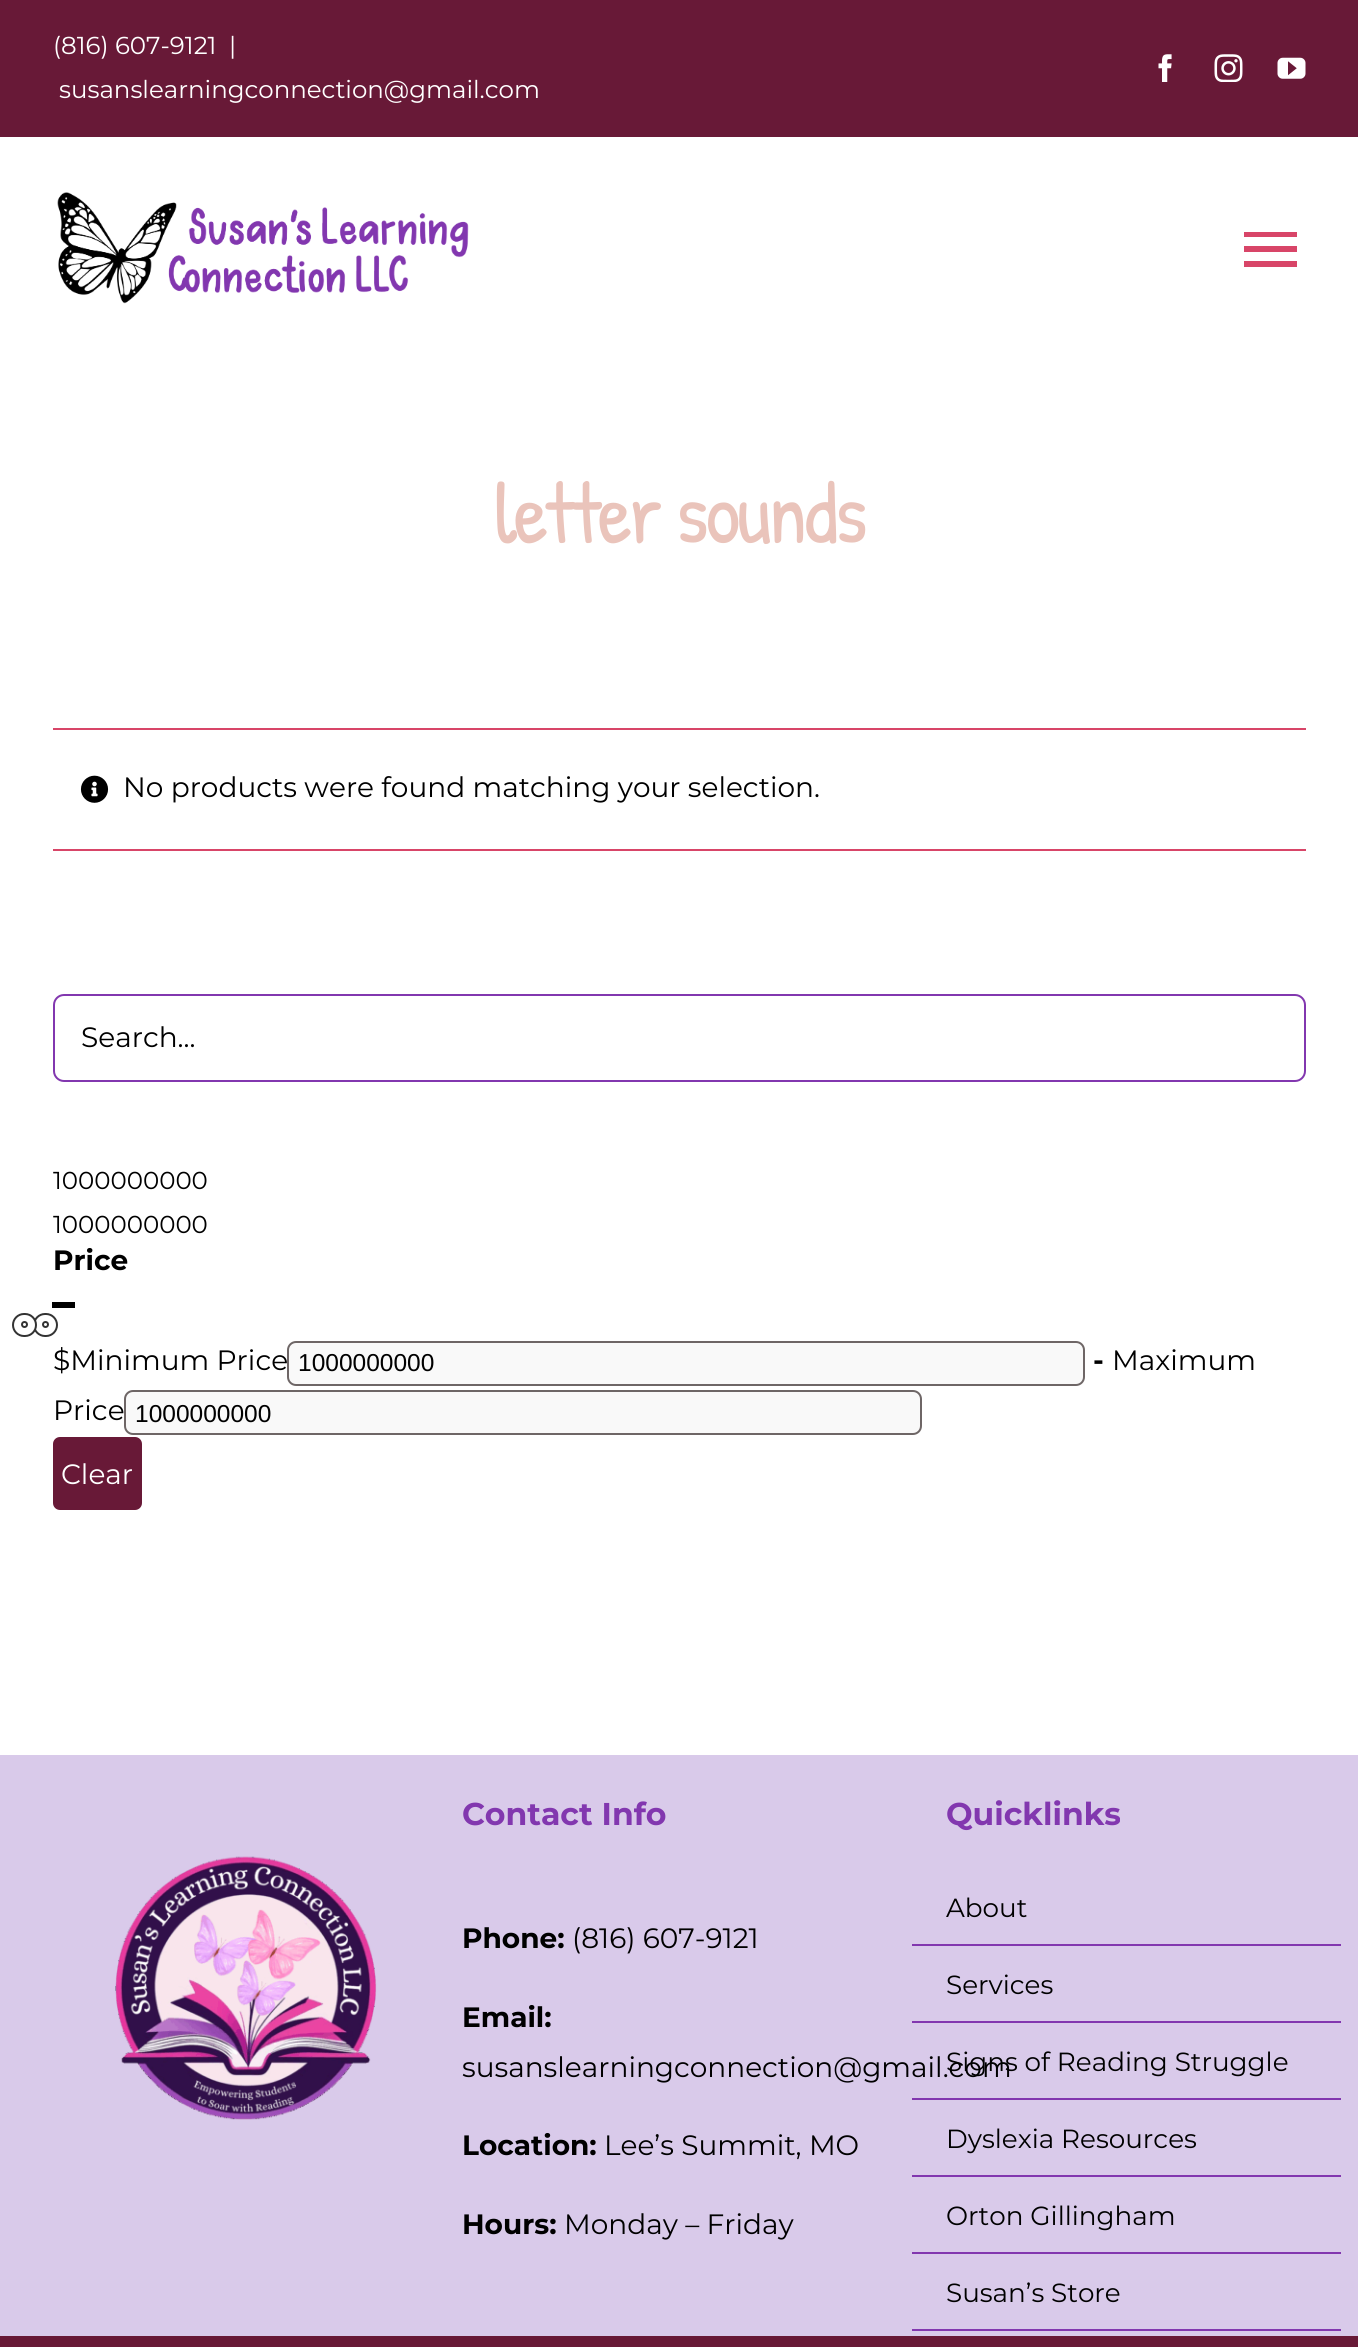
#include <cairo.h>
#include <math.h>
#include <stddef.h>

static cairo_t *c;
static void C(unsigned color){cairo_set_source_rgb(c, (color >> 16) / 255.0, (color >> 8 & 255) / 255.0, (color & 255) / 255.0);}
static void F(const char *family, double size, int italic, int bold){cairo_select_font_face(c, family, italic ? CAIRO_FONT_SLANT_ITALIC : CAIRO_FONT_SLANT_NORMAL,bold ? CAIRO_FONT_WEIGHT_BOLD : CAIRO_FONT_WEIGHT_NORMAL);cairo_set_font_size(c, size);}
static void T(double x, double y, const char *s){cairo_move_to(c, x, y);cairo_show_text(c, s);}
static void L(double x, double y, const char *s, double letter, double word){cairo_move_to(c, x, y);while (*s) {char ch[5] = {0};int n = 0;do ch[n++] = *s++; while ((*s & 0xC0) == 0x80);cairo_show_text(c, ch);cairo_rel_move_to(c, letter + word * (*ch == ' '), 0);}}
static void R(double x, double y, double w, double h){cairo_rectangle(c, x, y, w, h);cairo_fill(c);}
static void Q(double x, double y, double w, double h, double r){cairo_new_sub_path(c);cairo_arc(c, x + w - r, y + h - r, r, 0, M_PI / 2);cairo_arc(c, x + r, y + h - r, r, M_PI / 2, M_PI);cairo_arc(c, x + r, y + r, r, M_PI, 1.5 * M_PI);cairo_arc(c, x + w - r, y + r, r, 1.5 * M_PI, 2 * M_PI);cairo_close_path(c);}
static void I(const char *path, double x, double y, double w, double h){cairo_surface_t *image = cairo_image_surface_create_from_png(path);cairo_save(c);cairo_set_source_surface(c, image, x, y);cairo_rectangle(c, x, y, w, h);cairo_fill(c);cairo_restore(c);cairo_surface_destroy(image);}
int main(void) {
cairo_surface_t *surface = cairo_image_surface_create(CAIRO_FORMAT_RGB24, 1358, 2347);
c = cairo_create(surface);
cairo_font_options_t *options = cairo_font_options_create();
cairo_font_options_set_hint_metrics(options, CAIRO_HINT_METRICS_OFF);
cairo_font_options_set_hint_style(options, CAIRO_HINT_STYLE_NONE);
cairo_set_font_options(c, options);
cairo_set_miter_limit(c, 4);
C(0xffffff);
cairo_paint(c);
C(0x681937);
R(0,0,1358,137);
F("Montserrat",24.5,0,0);
C(0xffffff);
T(53,54,"(816) 607-9121");
T(229,54,"|");
T(59,98,"susanslearningconnection@gmail.com");
I("1.png",1158,54,14,28);
I("2.png",1214,54,29,28);
I("3.png",1277,57,29,22);
I("4.png",57,192,412,112);
C(0xd84568);
cairo_new_path(c);
cairo_move_to(c,1244,232);
cairo_line_to(c,1297,232);
cairo_line_to(c,1297,237);
cairo_line_to(c,1244,237);
cairo_close_path(c);
cairo_move_to(c,1244,252);
cairo_line_to(c,1244,246);
cairo_line_to(c,1297,246);
cairo_line_to(c,1297,252);
cairo_close_path(c);
cairo_move_to(c,1244,267);
cairo_line_to(c,1244,261);
cairo_line_to(c,1297,261);
cairo_line_to(c,1297,267);
cairo_close_path(c);
cairo_fill(c);
F("Patrick Hand",87,0,0);
C(0xeac4bb);
L(494,543,"letter sounds",-3.5,0);
C(0xd84568);
R(53,728,1253,2);
R(53,849,1253,2);
I("5.png",80,775,29,28);
F("Montserrat",28,0,0);
C(0x000000);
T(123,797,"No products were found matching your selection.");
Q(54,995,1251,86,10);
C(0x8237af);
cairo_stroke(c);
C(0x000000);
T(81,1047,"Search...");
F("Montserrat",24.5,0,0);
T(53,1189,"1000000000");
T(53,1233,"1000000000");
F("Montserrat",28,0,1);
T(53,1270,"Price");
R(52,1302,23,6);
Q(34,1314,23,22,11);
C(0x333333);
cairo_stroke(c);
C(0xffffff);
Q(13,1314,23,22,11);
cairo_fill_preserve(c);
C(0x333333);
cairo_stroke(c);
cairo_arc(c,24.5,1324.5,2.5,0,2 * M_PI);
cairo_stroke(c);
cairo_arc(c,45.5,1324.5,2.5,0,2 * M_PI);
cairo_stroke(c);
F("Montserrat",28,0,0);
C(0x000000);
T(53,1370,"$Minimum Price");
C(0xf9f9f9);
Q(288,1342,796,43,8);
cairo_fill_preserve(c);
C(0x6e6666);
cairo_stroke(c);
F("Liberation Sans",24.5,0,0);
C(0x000000);
T(298,1371,"1000000000");
F("Montserrat",28,0,1);
T(1093,1370,"-");
F("Montserrat",28,0,0);
T(1112,1370,"Maximum");
T(53,1420,"Price");
C(0xf9f9f9);
Q(125,1391,796,43,8);
cairo_fill_preserve(c);
C(0x6e6666);
cairo_stroke(c);
F("Liberation Sans",24.5,0,0);
C(0x000000);
T(135,1422,"1000000000");
C(0x681937);
Q(53,1437,89,73,7);
cairo_fill(c);
F("Montserrat",28,0,0);
C(0xffffff);
T(61,1484,"Clear");
C(0xd9caea);
R(0,1755,1358,581);
I("6.png",115,1856,262,264);
F("Montserrat",31.5,0,1);
C(0x8237af);
T(462,1825,"Contact Info");
F("Montserrat",28,0,1);
C(0x000000);
T(462,1948,"Phone:");
F("Montserrat",28,0,0);
T(572,1948,"(816) 607-9121");
F("Montserrat",28,0,1);
T(462,2027,"Email:");
F("Montserrat",28,0,0);
T(462,2077,"susanslearningconnection@gmail.com");
F("Montserrat",28,0,1);
T(462,2155,"Location:");
F("Montserrat",28,0,0);
T(604,2155,"Lee’s Summit, MO");
F("Montserrat",28,0,1);
T(462,2234,"Hours:");
F("Montserrat",28,0,0);
T(564,2234,"Monday – Friday");
F("Montserrat",31.5,0,1);
C(0x8237af);
T(946,1825,"Quicklinks");
R(912,1944,429,2);
F("Montserrat",26.25,0,0);
C(0x000000);
T(946,1917,"About");
C(0x8237af);
R(912,2021,429,2);
C(0x000000);
T(946,1994,"Services");
C(0x8237af);
R(912,2098,429,2);
C(0x000000);
T(946,2071,"Signs of Reading Struggle");
C(0x8237af);
R(912,2175,429,2);
C(0x000000);
T(946,2148,"Dyslexia Resources");
C(0x8237af);
R(912,2252,429,2);
C(0x000000);
T(946,2225,"Orton Gillingham");
C(0x8237af);
R(912,2329,429,2);
C(0x000000);
T(946,2302,"Susan’s Store");
C(0x681937);
R(0,2336,1358,11);
cairo_surface_write_to_png(surface, "o.png");
cairo_font_options_destroy(options);
cairo_destroy(c);
cairo_surface_destroy(surface);
return 0;
}
